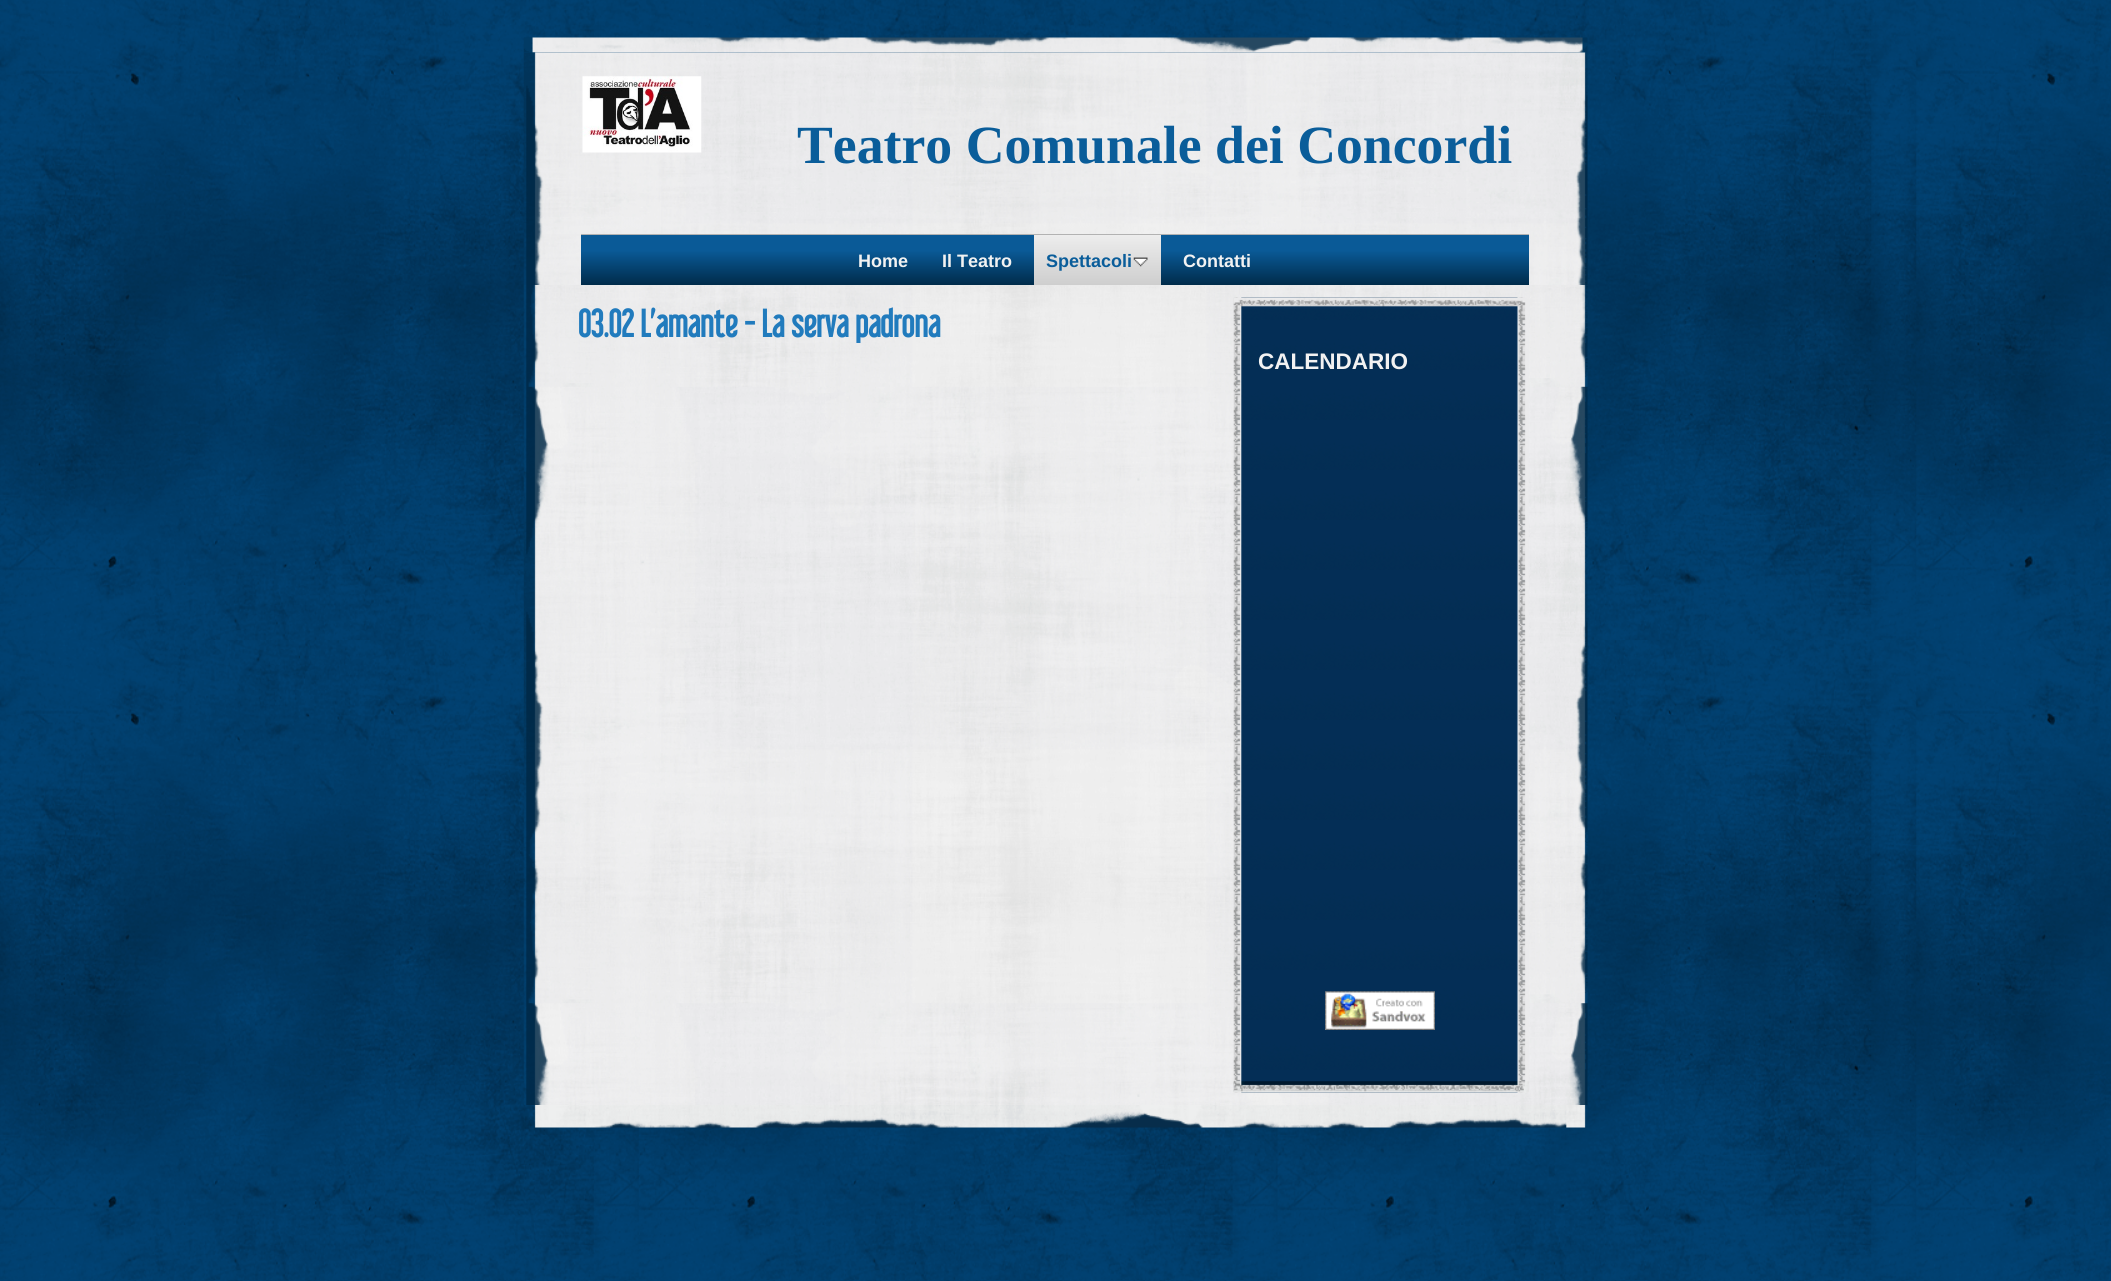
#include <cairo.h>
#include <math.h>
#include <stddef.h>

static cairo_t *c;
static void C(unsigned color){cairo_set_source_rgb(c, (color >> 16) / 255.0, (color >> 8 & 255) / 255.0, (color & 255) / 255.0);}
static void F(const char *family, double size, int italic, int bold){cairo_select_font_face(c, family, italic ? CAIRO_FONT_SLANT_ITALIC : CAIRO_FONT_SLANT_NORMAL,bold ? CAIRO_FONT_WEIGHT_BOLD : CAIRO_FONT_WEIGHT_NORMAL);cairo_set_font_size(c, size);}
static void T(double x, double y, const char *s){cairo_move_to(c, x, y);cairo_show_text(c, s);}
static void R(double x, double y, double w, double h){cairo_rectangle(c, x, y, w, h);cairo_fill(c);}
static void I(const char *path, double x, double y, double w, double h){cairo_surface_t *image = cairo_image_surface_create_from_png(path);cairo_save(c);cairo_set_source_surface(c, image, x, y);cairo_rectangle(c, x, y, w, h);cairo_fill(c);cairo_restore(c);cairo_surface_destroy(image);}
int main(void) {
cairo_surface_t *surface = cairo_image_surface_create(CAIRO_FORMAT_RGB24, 2111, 1281);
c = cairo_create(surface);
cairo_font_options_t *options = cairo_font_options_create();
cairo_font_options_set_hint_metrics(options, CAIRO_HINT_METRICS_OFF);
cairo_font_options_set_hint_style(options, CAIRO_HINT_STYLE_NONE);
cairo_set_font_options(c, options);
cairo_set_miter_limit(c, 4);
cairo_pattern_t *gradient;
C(0xffffff);
cairo_paint(c);
I("1.png",0,0,2111,1281);
I("2.png",523,37,1065,16);
I("3.png",523,52,1065,233);
I("4.png",582,76,120,77);
F("Liberation Serif",53.75,0,1);
C(0x0a5d9a);
T(797,163,"Teatro Comunale dei Concordi");
gradient = cairo_pattern_create_linear(581,285,581,235);
cairo_pattern_add_color_stop_rgba(gradient,0,0,0.169,0.29,1);
cairo_pattern_add_color_stop_rgba(gradient,.69,0.039,0.353,0.592,1);
cairo_set_source(c,gradient);
cairo_pattern_destroy(gradient);
R(581,235,948,50);
C(0xb2b2b2);
R(581,234,948,1);
F("Liberation Sans",18,0,1);
C(0xf2f2f2);
T(858,267,"Home");
T(942,267,"Il Teatro");
gradient = cairo_pattern_create_linear(1034,285,1034,235);
cairo_pattern_add_color_stop_rgba(gradient,0,0.808,0.808,0.808,1);
cairo_pattern_add_color_stop_rgba(gradient,1,0.929,0.929,0.929,1);
cairo_set_source(c,gradient);
cairo_pattern_destroy(gradient);
R(1034,235,127,50);
C(0x0a5d9a);
T(1046,267,"Spettacoli");
I("5.png",1133,257,15,10);
C(0xf2f2f2);
T(1183,267,"Contatti");
I("6.png",523,285,1065,820);
F("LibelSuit",35,0,1);
C(0x217bbd);
T(578,337,"03.02 L’amante - La serva padrona");
I("7.png",1233,297,296,796);
I("8.png",1233,297,293,12);
F("Liberation Sans",22.5,0,1);
C(0xf2f2f2);
T(1258,369,"CALENDARIO");
I("9.png",1325,991,110,39);
I("10.png",1233,1081,296,12);
I("11.png",534,1105,1052,23);
cairo_surface_write_to_png(surface, "o.png");
cairo_font_options_destroy(options);
cairo_destroy(c);
cairo_surface_destroy(surface);
return 0;
}
